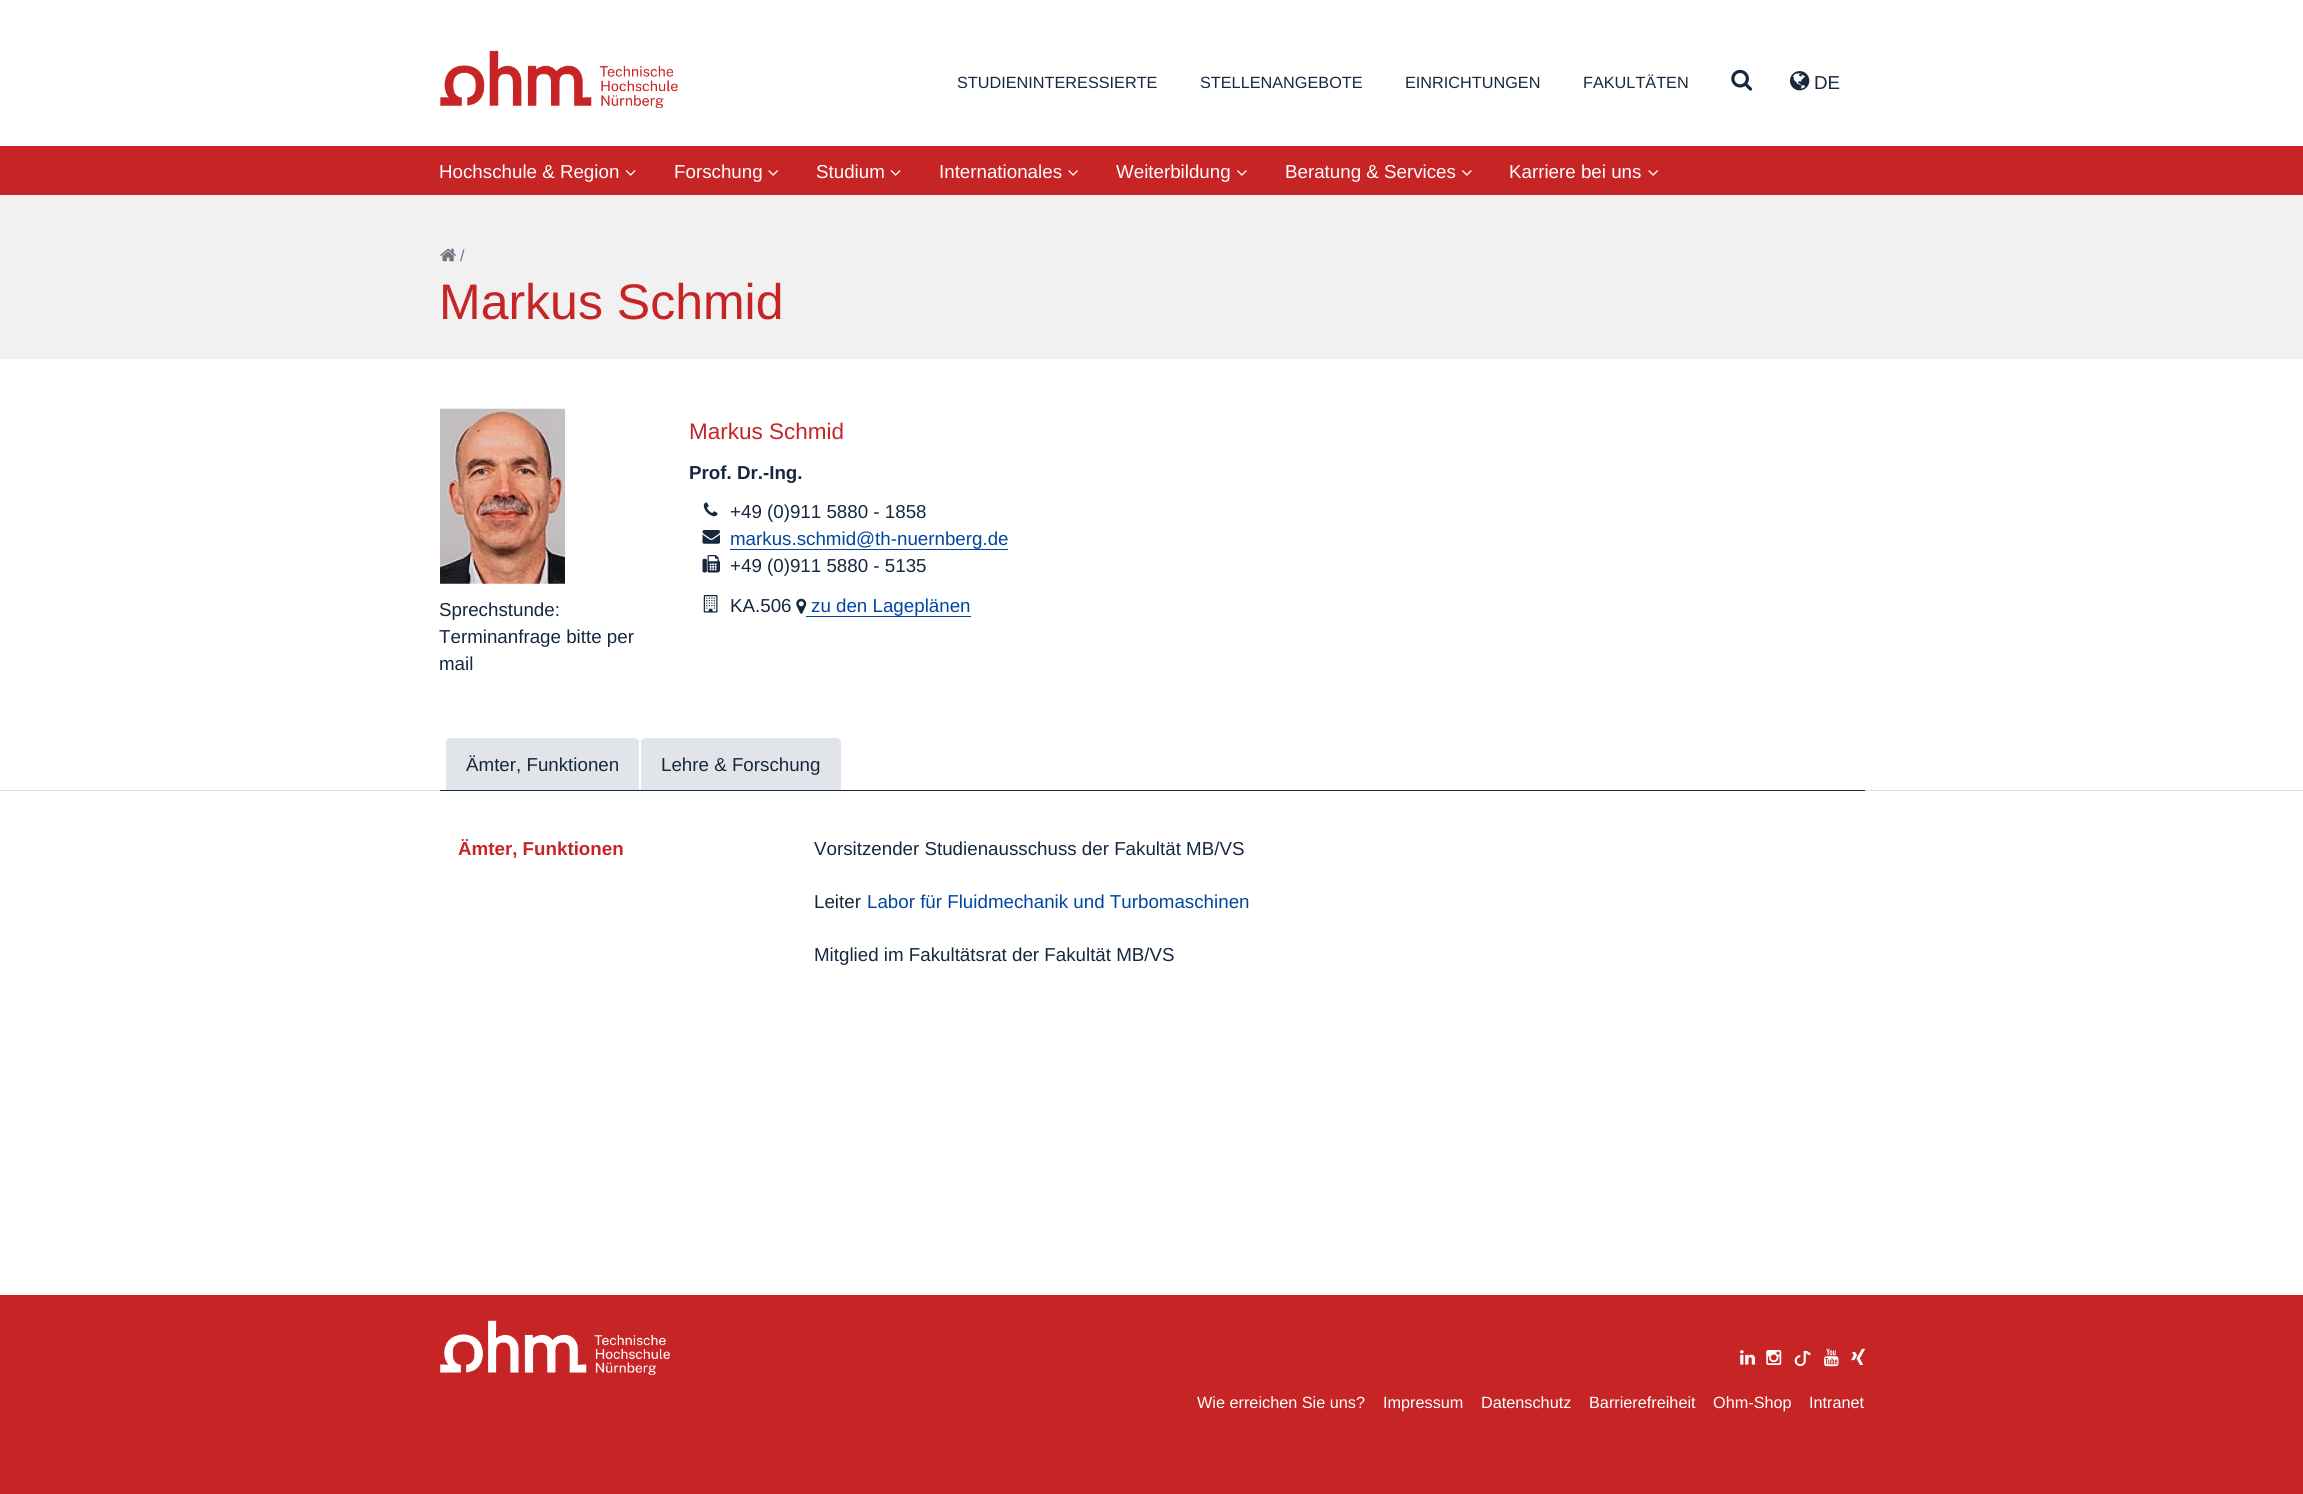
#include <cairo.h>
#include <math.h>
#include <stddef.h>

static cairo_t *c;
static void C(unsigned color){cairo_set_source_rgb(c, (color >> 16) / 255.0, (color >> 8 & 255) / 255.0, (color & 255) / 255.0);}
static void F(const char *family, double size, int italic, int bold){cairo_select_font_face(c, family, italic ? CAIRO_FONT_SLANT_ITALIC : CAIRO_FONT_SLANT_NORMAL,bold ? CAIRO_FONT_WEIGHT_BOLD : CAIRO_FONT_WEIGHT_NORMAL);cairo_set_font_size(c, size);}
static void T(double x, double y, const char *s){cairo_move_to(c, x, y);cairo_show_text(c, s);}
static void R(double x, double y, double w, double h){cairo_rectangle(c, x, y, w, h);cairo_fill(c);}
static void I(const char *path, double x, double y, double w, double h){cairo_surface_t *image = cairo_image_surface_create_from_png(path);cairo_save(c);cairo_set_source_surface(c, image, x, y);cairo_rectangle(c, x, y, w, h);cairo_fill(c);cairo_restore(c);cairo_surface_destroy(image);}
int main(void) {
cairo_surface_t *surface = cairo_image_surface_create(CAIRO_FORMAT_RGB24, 2303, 1494);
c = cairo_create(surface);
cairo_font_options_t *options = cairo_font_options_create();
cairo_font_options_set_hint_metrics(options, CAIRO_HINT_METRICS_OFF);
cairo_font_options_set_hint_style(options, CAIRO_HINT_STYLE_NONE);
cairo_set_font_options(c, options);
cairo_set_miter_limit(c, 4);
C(0xffffff);
cairo_paint(c);
I("1.png",440,50,238,58);
F("Liberation Sans",16.25,0,0);
C(0x16283d);
T(957,88,"STUDIENINTERESSIERTE");
T(1200,88,"STELLENANGEBOTE");
T(1405,88,"EINRICHTUNGEN");
T(1583,88,"FAKULTÄTEN");
I("2.png",1731,69,22,22);
I("3.png",1790,71,20,20);
F("Liberation Sans",18.75,0,0);
T(1814,89,"DE");
C(0xc72426);
R(0,146,2303,49);
C(0xffffff);
T(439,178,"Hochschule & Region");
I("4.png",625,170,11,6);
T(674,178,"Forschung");
I("5.png",768,170,10,6);
T(816,178,"Studium");
I("4.png",890,170,11,6);
T(939,178,"Internationales");
I("5.png",1068,170,10,6);
T(1116,178,"Weiterbildung");
I("6.png",1237,170,10,6);
T(1285,178,"Beratung & Services");
I("6.png",1462,170,10,6);
T(1509,178,"Karriere bei uns");
I("5.png",1648,170,10,6);
C(0xf1f1f1);
R(0,195,2303,164);
I("7.png",440,248,16,14);
F("Liberation Sans",16.25,0,0);
C(0x6e7885);
T(460,261,"/");
F("Liberation Sans",50,0,0);
C(0xc72426);
T(439,319,"Markus Schmid");
C(0xd9e0e9);
R(0,790,2303,1);
F("Liberation Sans",22.5,0,0);
C(0xc72426);
T(689,439,"Markus Schmid");
F("Liberation Sans",18.75,0,1);
C(0x16283d);
T(689,479,"Prof. Dr.-Ing.");
I("8.png",703,502,15,15);
F("Liberation Sans",18.75,0,0);
T(730,518,"+49 (0)911 5880 - 1858");
I("9.png",702,530,18,14);
C(0x0046a0);
T(730,545,"markus.schmid@th-nuernberg.de");
R(730,549,278,1);
I("10.png",702,555,18,18);
C(0x16283d);
T(730,572,"+49 (0)911 5880 - 5135");
I("11.png",703,595,15,18);
T(730,612,"KA.506");
I("12.png",796,598,11,16);
C(0x0046a0);
T(811,612,"zu den Lageplänen");
R(806,616,165,1);
I("13.png",440,408,125,176);
C(0x16283d);
T(439,616,"Sprechstunde:");
T(439,643,"Terminanfrage bitte per");
T(439,670,"mail");
R(440,790,1425,1);
C(0xe1e5ea);
cairo_new_path(c);
cairo_move_to(c,451,738);
cairo_line_to(c,634,738);
cairo_curve_to(c,637,738,639,740,639,743);
cairo_line_to(c,639,790);
cairo_line_to(c,446,790);
cairo_line_to(c,446,743);
cairo_curve_to(c,446,740,448,738,451,738);
cairo_close_path(c);
cairo_fill(c);
C(0x16283d);
T(466,771,"Ämter, Funktionen");
C(0xe1e5ea);
cairo_new_path(c);
cairo_move_to(c,646,738);
cairo_line_to(c,836,738);
cairo_curve_to(c,839,738,841,740,841,743);
cairo_line_to(c,841,790);
cairo_line_to(c,641,790);
cairo_line_to(c,641,743);
cairo_curve_to(c,641,740,643,738,646,738);
cairo_close_path(c);
cairo_fill(c);
C(0x16283d);
T(661,771,"Lehre & Forschung");
F("Liberation Sans",18.75,0,1);
C(0xc72426);
T(458,855,"Ämter, Funktionen");
F("Liberation Sans",18.75,0,0);
C(0x16283d);
T(814,855,"Vorsitzender Studienausschuss der Fakultät MB/VS");
T(814,908,"Leiter");
C(0x0046a0);
T(867,908,"Labor für Fluidmechanik und Turbomaschinen");
C(0x16283d);
T(814,961,"Mitglied im Fakultätsrat der Fakultät MB/VS");
C(0xc72426);
R(0,1295,2303,199);
I("14.png",440,1320,230,55);
I("15.png",1740,1350,15,15);
I("16.png",1766,1350,16,15);
I("17.png",1794,1351,17,15);
I("18.png",1824,1348,15,19);
I("19.png",1851,1348,14,17);
F("Liberation Sans",16.25,0,0);
C(0xffffff);
T(1197,1408,"Wie erreichen Sie uns?");
T(1383,1408,"Impressum");
T(1481,1408,"Datenschutz");
T(1589,1408,"Barrierefreiheit");
T(1713,1408,"Ohm-Shop");
T(1809,1408,"Intranet");
cairo_surface_write_to_png(surface, "o.png");
cairo_font_options_destroy(options);
cairo_destroy(c);
cairo_surface_destroy(surface);
return 0;
}
